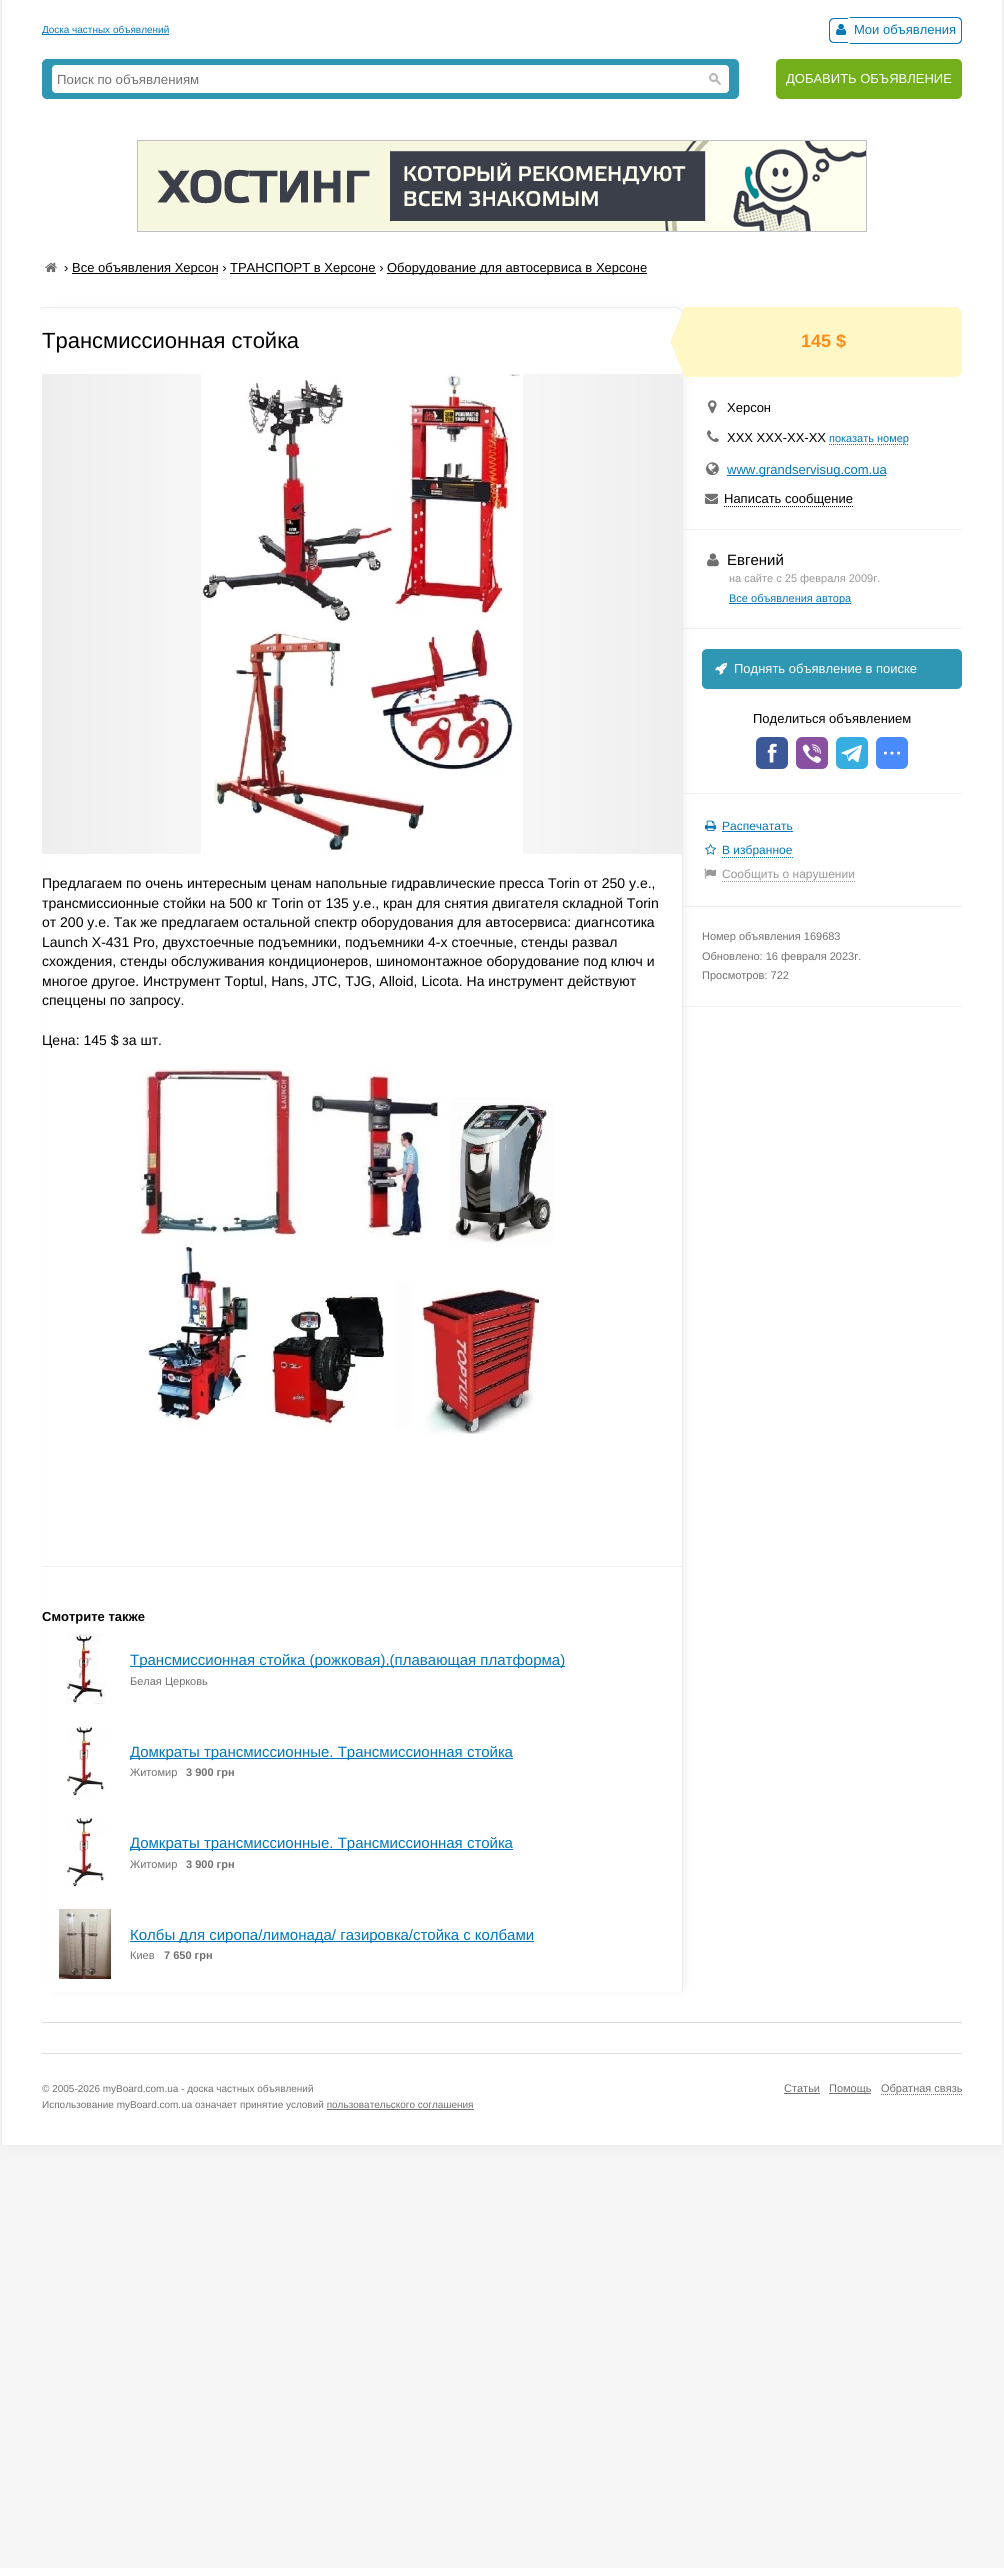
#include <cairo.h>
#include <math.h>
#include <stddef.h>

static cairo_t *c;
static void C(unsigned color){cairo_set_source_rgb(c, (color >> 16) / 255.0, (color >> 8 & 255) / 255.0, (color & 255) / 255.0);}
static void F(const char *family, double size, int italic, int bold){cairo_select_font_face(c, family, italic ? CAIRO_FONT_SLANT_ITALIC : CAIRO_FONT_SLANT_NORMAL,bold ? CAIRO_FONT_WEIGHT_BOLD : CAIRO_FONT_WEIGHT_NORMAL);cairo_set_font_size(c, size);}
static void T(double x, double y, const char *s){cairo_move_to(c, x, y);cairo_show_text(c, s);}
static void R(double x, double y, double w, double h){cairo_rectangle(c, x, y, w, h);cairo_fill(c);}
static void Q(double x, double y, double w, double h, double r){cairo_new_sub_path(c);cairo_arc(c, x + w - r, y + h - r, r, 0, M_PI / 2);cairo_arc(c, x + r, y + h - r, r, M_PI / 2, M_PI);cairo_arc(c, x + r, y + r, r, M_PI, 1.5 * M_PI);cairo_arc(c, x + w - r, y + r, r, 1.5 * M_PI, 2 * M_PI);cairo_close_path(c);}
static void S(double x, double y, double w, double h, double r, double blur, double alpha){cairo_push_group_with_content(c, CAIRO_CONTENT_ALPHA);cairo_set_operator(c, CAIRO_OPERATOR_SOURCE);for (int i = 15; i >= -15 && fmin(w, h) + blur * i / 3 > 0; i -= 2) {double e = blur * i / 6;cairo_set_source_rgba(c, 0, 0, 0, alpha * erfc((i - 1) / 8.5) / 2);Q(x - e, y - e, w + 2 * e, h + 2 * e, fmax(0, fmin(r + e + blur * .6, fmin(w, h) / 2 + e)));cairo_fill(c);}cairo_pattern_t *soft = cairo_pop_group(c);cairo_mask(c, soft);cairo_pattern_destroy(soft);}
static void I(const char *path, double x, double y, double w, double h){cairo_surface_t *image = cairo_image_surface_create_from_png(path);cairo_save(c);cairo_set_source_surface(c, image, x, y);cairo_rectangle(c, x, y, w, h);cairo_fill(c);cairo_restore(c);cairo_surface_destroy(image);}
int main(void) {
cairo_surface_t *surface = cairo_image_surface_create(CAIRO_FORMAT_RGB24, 1004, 2568);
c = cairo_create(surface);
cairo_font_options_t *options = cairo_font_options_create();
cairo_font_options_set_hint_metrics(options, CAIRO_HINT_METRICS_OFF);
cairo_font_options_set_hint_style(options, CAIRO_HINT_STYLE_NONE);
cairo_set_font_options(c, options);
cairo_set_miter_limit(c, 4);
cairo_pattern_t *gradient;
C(0xf5f5f5);
cairo_paint(c);
C(0xe8e8e8);
S(2,0,1000,2145,0,5,1);
C(0xffffff);
R(2,0,1000,2145);
C(0x0077bb);
R(42,34,127,1);
F("Liberation Sans",10,0,0);
T(42,33,"Доска частных объявлений");
cairo_set_fill_rule(c,CAIRO_FILL_RULE_EVEN_ODD);
cairo_new_path(c);
cairo_move_to(c,834,18);
cairo_line_to(c,848,18);
cairo_line_to(c,848,43);
cairo_line_to(c,834,43);
cairo_curve_to(c,831,43,829,41,829,38);
cairo_line_to(c,829,23);
cairo_curve_to(c,829,20,831,18,834,18);
cairo_close_path(c);
cairo_move_to(c,834,19);
cairo_line_to(c,848,19);
cairo_line_to(c,848,42);
cairo_line_to(c,834,42);
cairo_curve_to(c,832,42,830,40,830,38);
cairo_line_to(c,830,23);
cairo_curve_to(c,830,21,832,19,834,19);
cairo_close_path(c);
cairo_fill(c);
cairo_new_path(c);
cairo_move_to(c,850,17);
cairo_line_to(c,957,17);
cairo_curve_to(c,960,17,962,19,962,22);
cairo_line_to(c,962,39);
cairo_curve_to(c,962,42,960,44,957,44);
cairo_line_to(c,850,44);
cairo_close_path(c);
cairo_move_to(c,850,18);
cairo_line_to(c,957,18);
cairo_curve_to(c,959,18,961,20,961,22);
cairo_line_to(c,961,39);
cairo_curve_to(c,961,41,959,43,957,43);
cairo_line_to(c,850,43);
cairo_close_path(c);
cairo_fill(c);
I("1.png",836,23,11,12);
F("Liberation Sans",13,0,0);
T(854,34,"Мои объявления");
C(0x2f96b4);
Q(42,59,697,40,5);
cairo_fill(c);
C(0xffffff);
cairo_new_path(c);
cairo_move_to(c,56,65.5);
cairo_line_to(c,701.5,65.5);
cairo_line_to(c,701.5,92.5);
cairo_line_to(c,56,92.5);
cairo_curve_to(c,54,92.5,52.5,91,52.5,89);
cairo_line_to(c,52.5,69);
cairo_curve_to(c,52.5,67,54,65.5,56,65.5);
cairo_close_path(c);
cairo_fill_preserve(c);
cairo_set_line_width(c,1);
cairo_stroke(c);
F("Liberation Sans",13.25,0,0);
C(0x707070);
T(57,84,"Поиск по объявлениям");
C(0xffffff);
cairo_new_path(c);
cairo_move_to(c,702,65);
cairo_line_to(c,725,65);
cairo_curve_to(c,727,65,729,67,729,69);
cairo_line_to(c,729,89);
cairo_curve_to(c,729,91,727,93,725,93);
cairo_line_to(c,702,93);
cairo_close_path(c);
cairo_fill(c);
I("2.png",709,73,12,12);
cairo_new_path(c);
cairo_move_to(c,702,65);
cairo_line_to(c,725,65);
cairo_curve_to(c,727,65,729,67,729,69);
cairo_line_to(c,729,89);
cairo_curve_to(c,729,91,727,93,725,93);
cairo_line_to(c,702,93);
cairo_close_path(c);
cairo_move_to(c,702,66);
cairo_line_to(c,725,66);
cairo_curve_to(c,726.5,66,728,67.5,728,69);
cairo_line_to(c,728,89);
cairo_curve_to(c,728,90.5,726.5,92,725,92);
cairo_line_to(c,702,92);
cairo_close_path(c);
cairo_fill(c);
C(0x73af1a);
Q(776,59,186,40,5);
cairo_fill(c);
F("Liberation Sans",13,0,0);
C(0xffffff);
T(786,83,"ДОБАВИТЬ ОБЪЯВЛЕНИЕ");
cairo_rectangle(c,137.5,140.5,729,91);
C(0xbdc0c6);
cairo_stroke(c);
I("3.png",138,141,728,90);
I("4.png",45,262,12,11);
C(0x000000);
T(64,272,"›");
R(72,273,146,1);
T(72,272,"Все объявления Херсон ›");
R(230,273,146,1);
T(230,272,"ТРАНСПОРТ в Херсоне ›");
R(387,273,260,1);
T(387,272,"Оборудование для автосервиса в Херсоне");
cairo_save(c);
cairo_new_path(c);
cairo_move_to(c,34,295);
cairo_line_to(c,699,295);
cairo_line_to(c,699,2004);
cairo_line_to(c,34,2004);
cairo_close_path(c);
cairo_move_to(c,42,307);
cairo_line_to(c,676,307);
cairo_curve_to(c,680,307,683,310,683,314);
cairo_line_to(c,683,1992);
cairo_line_to(c,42,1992);
cairo_close_path(c);
cairo_clip(c);
C(0xe8e8e8);
S(50,311,633,1677,3,5,1);
cairo_restore(c);
C(0xeeeeee);
cairo_new_path(c);
cairo_move_to(c,42,307);
cairo_line_to(c,676,307);
cairo_curve_to(c,680,307,683,310,683,314);
cairo_line_to(c,683,1992);
cairo_line_to(c,42,1992);
cairo_close_path(c);
cairo_move_to(c,42,308);
cairo_line_to(c,676,308);
cairo_curve_to(c,679,308,682,311,682,314);
cairo_line_to(c,682,1992);
cairo_line_to(c,42,1992);
cairo_close_path(c);
cairo_fill(c);
F("Liberation Sans",22,0,0);
C(0x000000);
T(42,348,"Трансмиссионная стойка");
gradient = cairo_pattern_create_linear(42,614,682,614);
cairo_pattern_add_color_stop_rgba(gradient,0,0.933,0.933,0.933,1);
cairo_pattern_add_color_stop_rgba(gradient,.5,1,1,1,1);
cairo_pattern_add_color_stop_rgba(gradient,1,0.933,0.933,0.933,1);
cairo_set_source(c,gradient);
cairo_pattern_destroy(gradient);
R(42,374,640,480);
I("5.png",201,374,322,480);
F("Liberation Sans",14,0,0);
C(0x000000);
T(42,888,"Предлагаем по очень интересным ценам напольные гидравлические пресса Torin от 250 у.е.,");
T(42,908,"трансмиссионные стойки на 500 кг Torin от 135 у.е., кран для снятия двигателя складной Torin");
T(42,927,"от 200 у.е. Так же предлагаем остальной спектр оборудования для автосервиса: диагнсотика");
T(42,947,"Launch X-431 Pro, двухстоечные подъемники, подъемники 4-х стоечные, стенды развал");
T(42,966,"схождения, стенды обслуживания кондиционеров, шиномонтажное оборудование под ключ и");
T(42,986,"многое другое. Инструмент Toptul, Hans, JTC, TJG, Alloid, Licota. На инструмент действуют");
T(42,1005,"спеццены по запросу.");
T(42,1045,"Цена: 145 $ за шт.");
I("6.png",137,1068,416,368);
C(0xeeeeee);
R(42,1566,640,1);
F("Liberation Sans",13,0,1);
C(0x000000);
T(42,1621,"Смотрите также");
I("7.png",66,1634,40,70);
C(0x0077bb);
R(130,1666,435,1);
F("Liberation Sans",15,0,0);
T(130,1665,"Трансмиссионная стойка (рожковая),(плавающая платформа)");
F("Liberation Sans",11,0,0);
C(0x707070);
T(130,1685,"Белая Церковь");
I("8.png",66,1726,40,70);
C(0x0077bb);
R(130,1758,383,1);
F("Liberation Sans",15,0,0);
T(130,1757,"Домкраты трансмиссионные. Трансмиссионная стойка");
F("Liberation Sans",11,0,0);
C(0x707070);
T(130,1776,"Житомир");
F("Liberation Sans",11,0,1);
T(186,1776,"3 900 грн");
I("8.png",66,1817,40,70);
C(0x0077bb);
R(130,1849,383,1);
F("Liberation Sans",15,0,0);
T(130,1848,"Домкраты трансмиссионные. Трансмиссионная стойка");
F("Liberation Sans",11,0,0);
C(0x707070);
T(130,1868,"Житомир");
F("Liberation Sans",11,0,1);
T(186,1868,"3 900 грн");
I("9.png",58,1909,56,70);
C(0x0077bb);
R(130,1941,404,1);
F("Liberation Sans",15,0,0);
T(130,1940,"Колбы для сиропа/лимонада/ газировка/стойка с колбами");
F("Liberation Sans",11,0,0);
C(0x707070);
T(130,1959,"Киев");
F("Liberation Sans",11,0,1);
T(164,1959,"7 650 грн");
C(0xfff7c6);
cairo_new_path(c);
cairo_move_to(c,685,307);
cairo_line_to(c,955,307);
cairo_curve_to(c,959,307,962,310,962,314);
cairo_line_to(c,962,370);
cairo_curve_to(c,962,374,959,377,955,377);
cairo_line_to(c,685,377);
cairo_close_path(c);
cairo_fill(c);
I("10.png",671,307,14,69);
F("Liberation Sans",18,0,1);
C(0xff8b19);
T(801,347,"145 $");
I("11.png",708,400,9,14);
F("Liberation Sans",13,0,0);
C(0x000000);
T(727,412,"Херсон");
I("12.png",707,430,12,13);
T(727,442,"ХХХ ХХХ-ХХ-ХХ");
cairo_new_path(c);
cairo_move_to(c,829,444.5);
cairo_line_to(c,909,444.5);
C(0x0077bb);
cairo_set_dash(c,(double[]){1,1},2,0);
cairo_stroke(c);
F("Liberation Sans",11,0,0);
T(829,442,"показать номер");
I("13.png",706,462,13,14);
R(727,475,159,1);
F("Liberation Sans",13,0,0);
T(727,474,"www.grandservisug.com.ua");
I("14.png",705,493,13,11);
C(0x000000);
T(724,503,"Написать сообщение");
cairo_new_path(c);
cairo_move_to(c,724,506.5);
cairo_line_to(c,853,506.5);
cairo_stroke(c);
C(0xeeeeee);
R(682,529,280,1);
I("15.png",707,553,12,14);
F("Liberation Sans",15,0,0);
C(0x000000);
T(727,565,"Евгений");
F("Liberation Sans",11,0,0);
C(0x999999);
T(729,582,"на сайте с 25 февраля 2009г.");
C(0x0077bb);
R(729,603,122,1);
T(729,602,"Все объявления автора");
C(0xeeeeee);
R(682,628,280,1);
C(0x2f96b4);
Q(702,649,260,40,5);
cairo_fill(c);
I("16.png",715,662,13,13);
F("Liberation Sans",13,0,0);
C(0xffffff);
T(734,673,"Поднять объявление в поиске");
C(0x000000);
T(753,723,"Поделиться объявлением");
C(0x3b5998);
Q(756,737,32,32,6);
cairo_fill(c);
I("17.png",767,743,10,20);
C(0x8950a1);
Q(796,737,32,32,6);
cairo_fill(c);
I("18.png",802,744,19,19);
C(0x37aee2);
Q(836,737,32,32,6);
cairo_fill(c);
I("19.png",841,745,21,18);
C(0x498bfa);
Q(876,737,32,32,6);
cairo_fill(c);
I("20.png",883,751,18,4);
C(0xeeeeee);
R(682,793,280,1);
I("21.png",705,820,12,11);
F("Liberation Sans",12,0,0);
C(0x0077bb);
T(722,830,"Распечатать");
R(722,831,71,1);
I("22.png",705,844,12,11);
T(722,854,"В избранное");
cairo_new_path(c);
cairo_move_to(c,722,857.5);
cairo_line_to(c,793,857.5);
cairo_stroke(c);
I("23.png",704,868,12,11);
C(0x999999);
T(722,878,"Сообщить о нарушении");
cairo_new_path(c);
cairo_move_to(c,722,881.5);
cairo_line_to(c,855,881.5);
cairo_stroke(c);
C(0xeeeeee);
R(682,906,280,1);
F("Liberation Sans",11,0,0);
C(0x707070);
T(702,940,"Номер объявления 169683");
T(702,960,"Обновлено: 16 февраля 2023г.");
T(702,979,"Просмотров: 722");
C(0xeeeeee);
R(682,1006,280,1);
C(0xdddddd);
R(42,2022,920,1);
R(42,2053,920,1);
F("Liberation Sans",10,0,0);
C(0x707070);
T(42,2092,"© 2005-2026 myBoard.com.ua - доска частных объявлений");
T(42,2108,"Использование myBoard.com.ua означает принятие условий пользовательского соглашения");
R(327,2109,147,1);
F("Liberation Sans",11,0,0);
T(784,2092,"Статьи");
R(784,2093,36,1);
R(829,2093,42,1);
T(829,2092,"Помощь");
cairo_new_path(c);
cairo_move_to(c,881,2094.5);
cairo_line_to(c,962,2094.5);
cairo_stroke(c);
T(881,2092,"Обратная связь");
cairo_surface_write_to_png(surface, "o.png");
cairo_font_options_destroy(options);
cairo_destroy(c);
cairo_surface_destroy(surface);
return 0;
}
